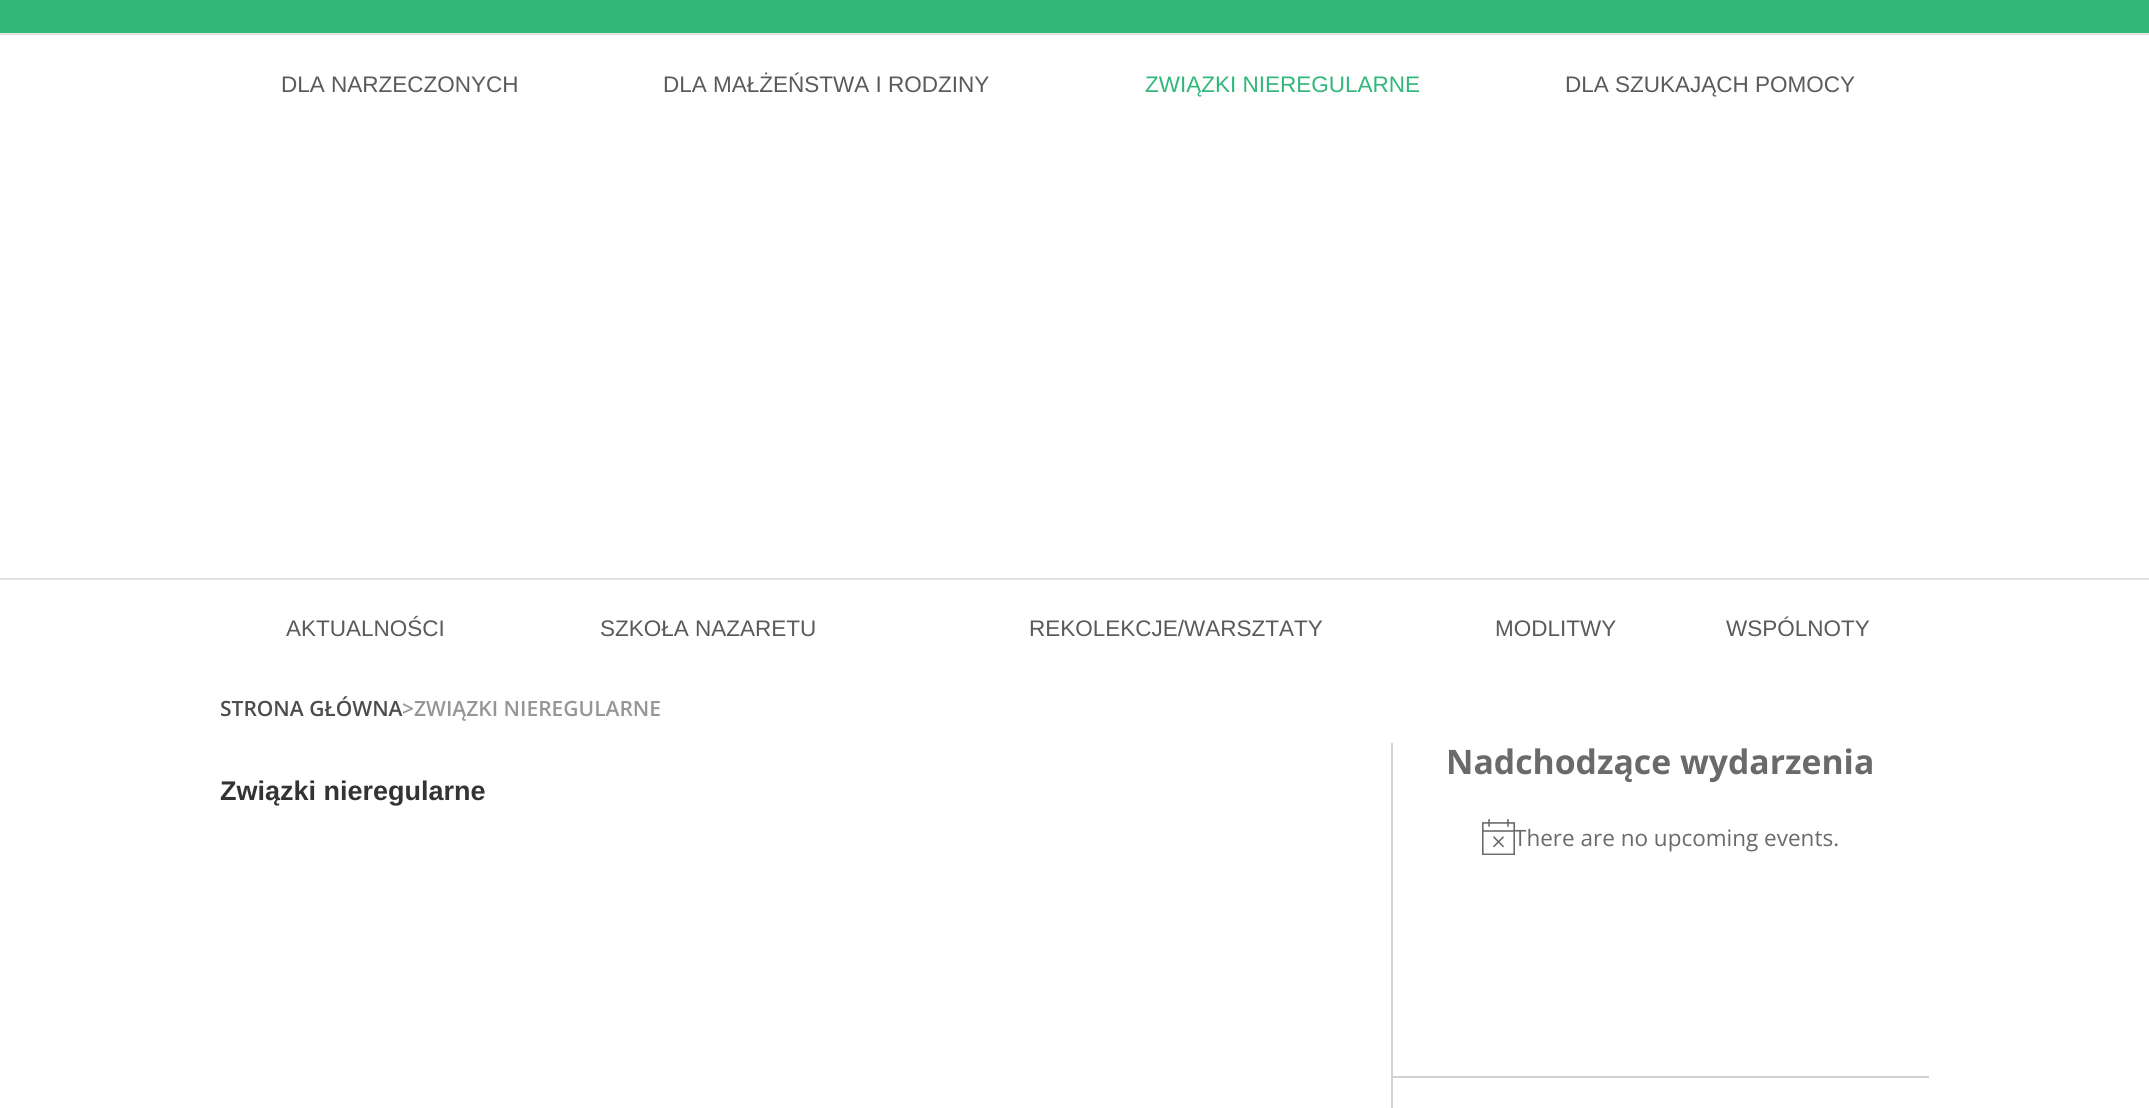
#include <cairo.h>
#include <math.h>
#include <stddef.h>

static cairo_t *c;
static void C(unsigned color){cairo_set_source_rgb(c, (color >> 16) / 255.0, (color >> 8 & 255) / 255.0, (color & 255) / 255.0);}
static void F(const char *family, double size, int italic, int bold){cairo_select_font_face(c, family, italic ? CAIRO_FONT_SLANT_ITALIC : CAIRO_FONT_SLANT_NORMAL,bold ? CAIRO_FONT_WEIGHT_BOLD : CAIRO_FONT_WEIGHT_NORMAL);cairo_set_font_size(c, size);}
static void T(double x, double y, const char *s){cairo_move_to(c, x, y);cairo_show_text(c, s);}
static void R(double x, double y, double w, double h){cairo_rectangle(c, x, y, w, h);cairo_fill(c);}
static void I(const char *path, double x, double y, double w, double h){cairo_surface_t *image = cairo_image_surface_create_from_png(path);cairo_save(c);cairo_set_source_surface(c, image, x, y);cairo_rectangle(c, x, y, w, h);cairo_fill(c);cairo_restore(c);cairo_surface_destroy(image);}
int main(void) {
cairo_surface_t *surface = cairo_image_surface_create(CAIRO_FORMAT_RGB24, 2149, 1108);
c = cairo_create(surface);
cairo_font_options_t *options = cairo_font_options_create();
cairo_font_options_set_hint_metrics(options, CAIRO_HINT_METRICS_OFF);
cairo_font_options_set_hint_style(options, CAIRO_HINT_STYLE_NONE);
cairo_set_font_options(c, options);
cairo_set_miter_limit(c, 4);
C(0xffffff);
cairo_paint(c);
C(0x32b67a);
R(0,0,2149,33);
C(0xe3e3e3);
R(0,33,2149,2);
F("Liberation Sans",22.5,0,0);
C(0x5a5a5a);
T(281,92,"DLA NARZECZONYCH");
T(663,92,"DLA MAŁŻEŃSTWA I RODZINY");
C(0x32b67a);
T(1145,92,"ZWIĄZKI NIEREGULARNE");
C(0x5a5a5a);
T(1565,92,"DLA SZUKAJĄCH POMOCY");
C(0xe3e3e3);
R(0,578,2149,2);
C(0x5a5a5a);
T(286,636,"AKTUALNOŚCI");
T(600,636,"SZKOŁA NAZARETU");
T(1029,636,"REKOLEKCJE/WARSZTATY");
T(1495,636,"MODLITWY");
T(1726,636,"WSPÓLNOTY");
F("Open Sans SemiBold",21,0,0);
C(0x4c4c4c);
T(220,716,"STRONA GŁÓWNA");
C(0x969696);
T(402,716,">ZWIĄZKI NIEREGULARNE");
F("Liberation Sans",27,0,1);
C(0x333333);
T(220,800,"Związki nieregularne");
C(0xd2d2d2);
R(1391,743,2,365);
F("Open Sans",33.75,0,1);
C(0x6a6a6a);
T(1446,774,"Nadchodzące wydarzenia");
F("Open Sans",22.5,0,0);
T(1514,846,"There are no upcoming events.");
I("1.png",1482,819,33,36);
C(0xd2d2d2);
R(1392,1076,537,2);
cairo_surface_write_to_png(surface, "o.png");
cairo_font_options_destroy(options);
cairo_destroy(c);
cairo_surface_destroy(surface);
return 0;
}
